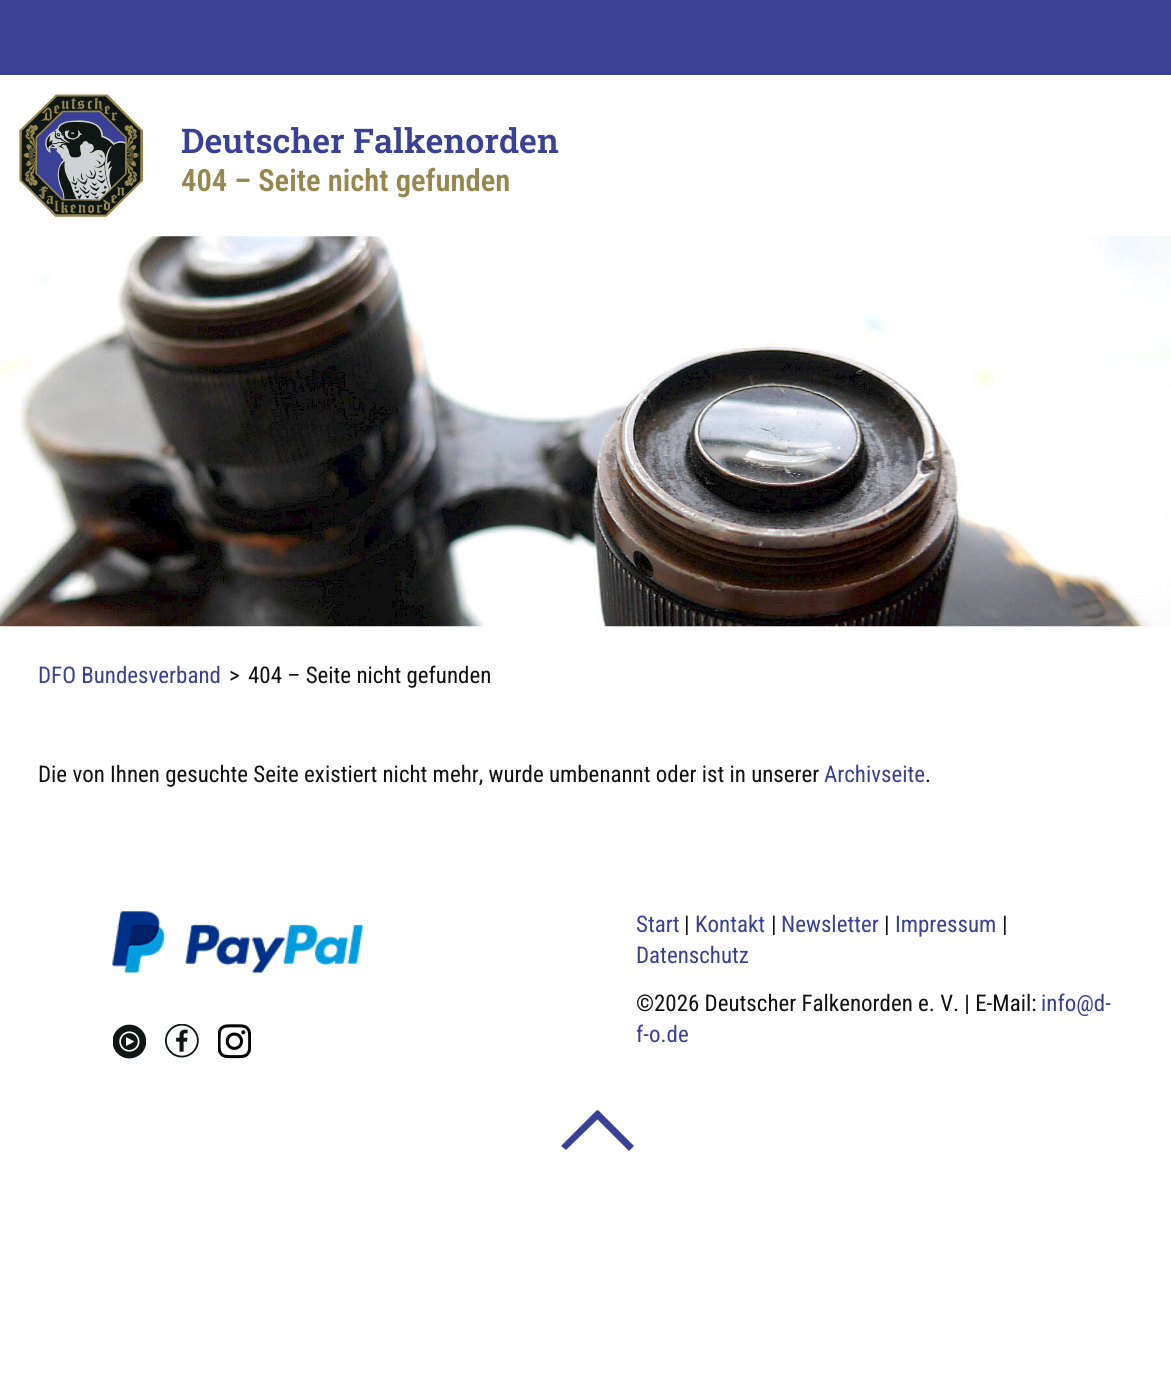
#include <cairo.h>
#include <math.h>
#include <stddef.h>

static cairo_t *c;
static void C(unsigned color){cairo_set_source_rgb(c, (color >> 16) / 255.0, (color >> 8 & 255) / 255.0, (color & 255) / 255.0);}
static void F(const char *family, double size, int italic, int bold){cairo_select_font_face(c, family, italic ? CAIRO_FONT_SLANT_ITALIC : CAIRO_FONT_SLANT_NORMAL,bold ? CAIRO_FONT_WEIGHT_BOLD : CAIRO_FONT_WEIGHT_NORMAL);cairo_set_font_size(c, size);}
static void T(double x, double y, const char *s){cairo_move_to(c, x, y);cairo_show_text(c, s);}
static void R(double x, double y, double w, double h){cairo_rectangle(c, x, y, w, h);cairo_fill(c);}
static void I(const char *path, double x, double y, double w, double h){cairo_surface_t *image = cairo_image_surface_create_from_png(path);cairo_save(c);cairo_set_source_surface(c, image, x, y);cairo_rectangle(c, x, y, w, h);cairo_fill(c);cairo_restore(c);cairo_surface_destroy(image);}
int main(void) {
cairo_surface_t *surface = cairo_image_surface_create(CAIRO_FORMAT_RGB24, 1171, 1395);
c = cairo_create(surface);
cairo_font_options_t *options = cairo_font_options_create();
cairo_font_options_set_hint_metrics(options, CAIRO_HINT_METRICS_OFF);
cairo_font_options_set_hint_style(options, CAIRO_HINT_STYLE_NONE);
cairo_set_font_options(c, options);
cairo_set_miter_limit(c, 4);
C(0xffffff);
cairo_paint(c);
C(0x384195);
R(0,0,1171,75);
I("1.png",19,94,125,123);
F("Roboto Slab SemiBold",34,0,0);
T(181,153,"Deutscher Falkenorden");
F("Roboto Condensed SemiBold",30.6,0,0);
C(0x97874f);
T(181,191,"404 – Seite nicht gefunden");
I("2.png",0,236,1171,391);
F("Roboto Condensed",22.95,0,0);
C(0x384195);
T(38,683,"DFO Bundesverband");
C(0x111111);
T(229,683,">");
T(248,683,"404 – Seite nicht gefunden");
T(38,782,"Die von Ihnen gesuchte Seite existiert nicht mehr, wurde umbenannt oder ist in unserer");
C(0x384195);
T(824,782,"Archivseite");
C(0x111111);
T(925,782,".");
I("3.png",112,911,251,62);
I("4.png",113,1024,33,35);
I("5.png",165,1024,34,34);
I("6.png",218,1024,33,35);
C(0x384195);
T(636,932,"Start");
C(0x111111);
T(684,932,"|");
C(0x384195);
T(695,932,"Kontakt");
C(0x111111);
T(771,932,"|");
C(0x384195);
T(781,932,"Newsletter");
C(0x111111);
T(884,932,"|");
C(0x384195);
T(895,932,"Impressum");
C(0x111111);
T(1002,932,"|");
C(0x384195);
T(636,963,"Datenschutz");
C(0x111111);
T(636,1011,"©2026 Deutscher Falkenorden e. V. | E-Mail:");
C(0x384195);
T(1041,1011,"info@d-");
T(636,1042,"f-o.de");
cairo_new_path(c);
cairo_move_to(c,561,1146);
cairo_line_to(c,597,1110);
cairo_line_to(c,602,1115);
cairo_line_to(c,566,1150);
cairo_close_path(c);
cairo_fill(c);
cairo_new_path(c);
cairo_move_to(c,629,1151);
cairo_line_to(c,593,1115);
cairo_line_to(c,598,1110);
cairo_line_to(c,634,1146);
cairo_close_path(c);
cairo_fill(c);
cairo_surface_write_to_png(surface, "o.png");
cairo_font_options_destroy(options);
cairo_destroy(c);
cairo_surface_destroy(surface);
return 0;
}
